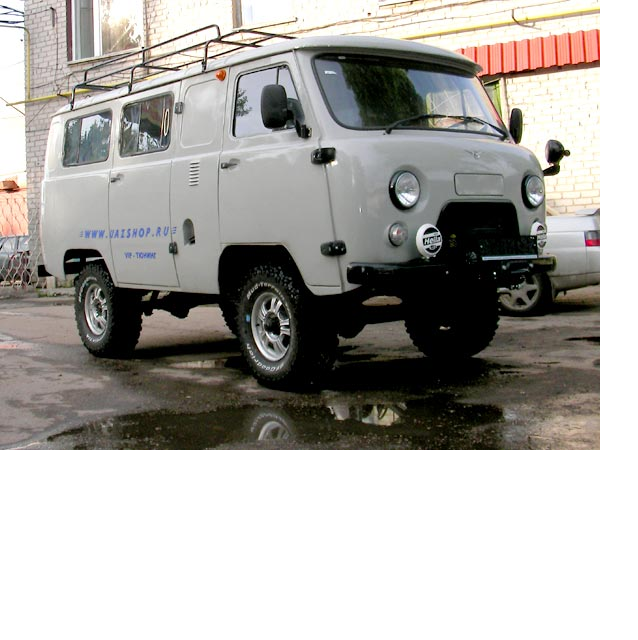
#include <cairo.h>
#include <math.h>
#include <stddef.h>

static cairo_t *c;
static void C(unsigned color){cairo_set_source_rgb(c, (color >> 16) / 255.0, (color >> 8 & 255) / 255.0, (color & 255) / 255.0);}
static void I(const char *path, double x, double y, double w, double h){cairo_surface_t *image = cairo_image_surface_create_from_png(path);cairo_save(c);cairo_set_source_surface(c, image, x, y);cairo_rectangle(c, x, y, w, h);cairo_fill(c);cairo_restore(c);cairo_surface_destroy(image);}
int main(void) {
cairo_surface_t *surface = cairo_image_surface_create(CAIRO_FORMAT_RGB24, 638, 640);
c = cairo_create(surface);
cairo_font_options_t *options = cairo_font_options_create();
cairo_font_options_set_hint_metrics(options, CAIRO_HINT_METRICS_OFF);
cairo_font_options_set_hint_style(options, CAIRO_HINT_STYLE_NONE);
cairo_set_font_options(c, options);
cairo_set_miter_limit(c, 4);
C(0xffffff);
cairo_paint(c);
I("1.png",0,0,600,450);
cairo_surface_write_to_png(surface, "o.png");
cairo_font_options_destroy(options);
cairo_destroy(c);
cairo_surface_destroy(surface);
return 0;
}
